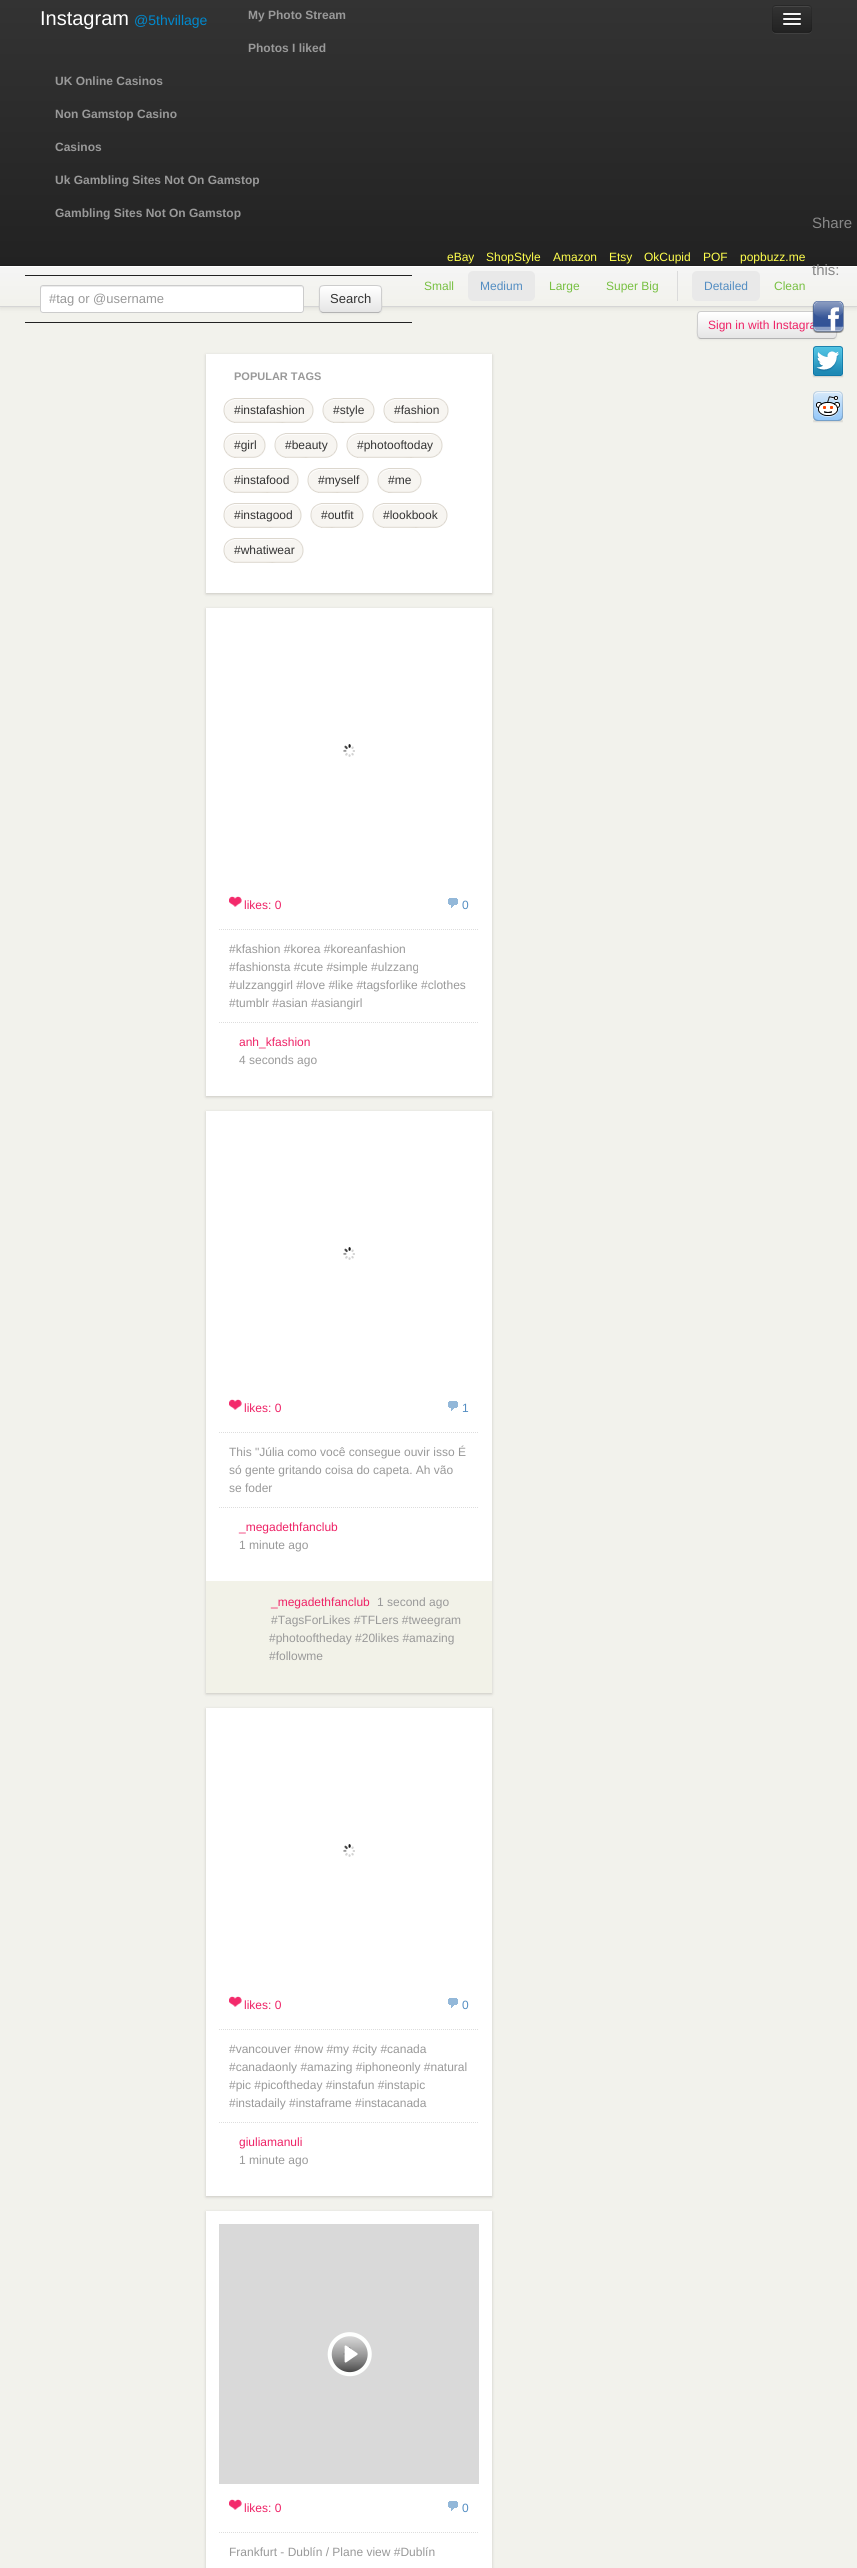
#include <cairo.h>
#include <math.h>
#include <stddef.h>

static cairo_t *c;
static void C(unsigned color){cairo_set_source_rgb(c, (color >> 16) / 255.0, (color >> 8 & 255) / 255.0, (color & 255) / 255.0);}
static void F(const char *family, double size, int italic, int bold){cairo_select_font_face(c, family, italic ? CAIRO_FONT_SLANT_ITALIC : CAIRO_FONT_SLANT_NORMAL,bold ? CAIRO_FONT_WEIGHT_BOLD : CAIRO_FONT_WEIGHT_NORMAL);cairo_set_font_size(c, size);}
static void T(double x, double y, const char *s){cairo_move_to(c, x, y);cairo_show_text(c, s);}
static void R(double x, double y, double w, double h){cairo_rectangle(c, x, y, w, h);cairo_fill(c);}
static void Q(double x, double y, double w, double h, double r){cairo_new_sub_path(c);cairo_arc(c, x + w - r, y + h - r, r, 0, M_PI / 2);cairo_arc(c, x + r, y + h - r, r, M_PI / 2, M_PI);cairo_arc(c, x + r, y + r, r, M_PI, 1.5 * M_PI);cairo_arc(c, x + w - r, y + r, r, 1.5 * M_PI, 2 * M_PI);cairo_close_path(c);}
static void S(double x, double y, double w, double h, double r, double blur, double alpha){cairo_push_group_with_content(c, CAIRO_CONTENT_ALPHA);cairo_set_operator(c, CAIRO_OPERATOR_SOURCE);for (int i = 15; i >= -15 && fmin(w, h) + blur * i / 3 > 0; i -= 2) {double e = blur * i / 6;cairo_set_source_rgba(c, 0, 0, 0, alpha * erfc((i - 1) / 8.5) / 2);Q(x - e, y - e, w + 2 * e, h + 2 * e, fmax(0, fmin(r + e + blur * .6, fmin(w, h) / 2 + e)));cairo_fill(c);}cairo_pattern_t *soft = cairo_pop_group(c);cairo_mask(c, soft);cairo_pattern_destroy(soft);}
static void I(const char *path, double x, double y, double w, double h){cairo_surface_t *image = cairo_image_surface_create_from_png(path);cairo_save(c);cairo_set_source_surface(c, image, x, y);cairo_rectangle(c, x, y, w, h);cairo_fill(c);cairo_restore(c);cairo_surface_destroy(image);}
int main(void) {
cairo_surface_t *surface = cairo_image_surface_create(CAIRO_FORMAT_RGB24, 857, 2568);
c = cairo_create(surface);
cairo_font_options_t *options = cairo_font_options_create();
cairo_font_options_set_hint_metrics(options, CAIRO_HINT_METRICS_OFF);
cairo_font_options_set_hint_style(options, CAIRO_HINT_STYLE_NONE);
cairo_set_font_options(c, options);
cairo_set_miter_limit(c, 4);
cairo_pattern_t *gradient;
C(0xf2f2ec);
cairo_paint(c);
gradient = cairo_pattern_create_linear(429,0,429,266);
cairo_pattern_add_color_stop_rgba(gradient,0,0.2,0.2,0.2,1);
cairo_pattern_add_color_stop_rgba(gradient,1,0.133,0.133,0.133,1);
cairo_set_source(c,gradient);
cairo_pattern_destroy(gradient);
R(0,0,857,265);
C(0x1f1f1f);
R(0,265,857,1);
F("Liberation Sans",12,0,1);
C(0x999999);
T(248,19,"My Photo Stream");
T(248,52,"Photos I liked");
T(55,85,"UK Online Casinos");
T(55,118,"Non Gamstop Casino");
T(55,151,"Casinos");
T(55,184,"Uk Gambling Sites Not On Gamstop");
T(55,217,"Gambling Sites Not On Gamstop");
C(0x404040);
cairo_new_path(c);
cairo_move_to(c,772,29);
cairo_curve_to(c,772,35,777,34,781,34);
cairo_line_to(c,803,34);
cairo_curve_to(c,807,34,812,35,812,29);
cairo_curve_to(c,812,31,810,33,808,33);
cairo_line_to(c,776,33);
cairo_curve_to(c,774,33,772,31,772,29);
cairo_close_path(c);
cairo_fill(c);
C(0x2c2c2c);
Q(772,5,40,28,4);
cairo_fill(c);
cairo_save(c);
Q(772,5,40,28,4);
cairo_clip(c);
gradient = cairo_pattern_create_linear(792,6,792,32);
cairo_pattern_add_color_stop_rgba(gradient,0,0.2,0.2,0.2,1);
cairo_pattern_add_color_stop_rgba(gradient,1,0.133,0.133,0.133,1);
cairo_set_source(c,gradient);
cairo_pattern_destroy(gradient);
R(772,6,40,26);
cairo_restore(c);
C(0x474747);
cairo_new_path(c);
cairo_move_to(c,776,7);
cairo_line_to(c,808,7);
cairo_curve_to(c,810,7,811,8,811,10);
cairo_curve_to(c,811,5,807,6,802.5,6);
cairo_line_to(c,781.5,6);
cairo_curve_to(c,777,6,773,5,773,10);
cairo_curve_to(c,773,8,774,7,776,7);
cairo_close_path(c);
cairo_fill(c);
cairo_new_path(c);
cairo_move_to(c,810.5,31.5);
cairo_curve_to(c,810,32,809,32.5,808,32.5);
cairo_line_to(c,776,32.5);
cairo_curve_to(c,775,32.5,774,32,773.5,31.5);
cairo_set_source_rgba(c,0,0,0,0.25);
cairo_set_line_width(c,1);
cairo_stroke(c);
cairo_new_path(c);
cairo_move_to(c,773.5,31.5);
cairo_curve_to(c,773,31,772.5,30,772.5,29);
cairo_line_to(c,772.5,9);
cairo_curve_to(c,772.5,8,773,7,773.5,6.5);
cairo_curve_to(c,774,6,775,5.5,776,5.5);
cairo_line_to(c,808,5.5);
cairo_curve_to(c,809,5.5,810,6,810.5,6.5);
cairo_curve_to(c,811,7,811.5,8,811.5,9);
cairo_line_to(c,811.5,29);
cairo_curve_to(c,811.5,30,811,31,810.5,31.5);
cairo_set_source_rgba(c,0,0,0,0.1);
cairo_stroke(c);
C(0x222222);
cairo_new_path(c);
cairo_move_to(c,783,14.5);
cairo_curve_to(c,782,16.5,786.5,16,786.5,16);
cairo_line_to(c,797.5,16);
cairo_curve_to(c,797.5,16,802,16.5,801,14.5);
cairo_curve_to(c,800,15.5,793.5,15,792,15);
cairo_curve_to(c,790.5,15,784,15.5,783,14.5);
cairo_close_path(c);
cairo_fill(c);
C(0xf5f5f5);
Q(783,13,18,2,1);
cairo_fill(c);
C(0x202020);
cairo_new_path(c);
cairo_move_to(c,783,19.5);
cairo_curve_to(c,782,21.5,786.5,21,786.5,21);
cairo_line_to(c,797.5,21);
cairo_curve_to(c,797.5,21,802,21.5,801,19.5);
cairo_curve_to(c,800,20.5,793.5,20,792,20);
cairo_curve_to(c,790.5,20,784,20.5,783,19.5);
cairo_close_path(c);
cairo_fill(c);
C(0xf5f5f5);
Q(783,18,18,2,1);
cairo_fill(c);
C(0x1d1d1d);
cairo_new_path(c);
cairo_move_to(c,783,24.5);
cairo_curve_to(c,782,26.5,786.5,26,786.5,26);
cairo_line_to(c,797.5,26);
cairo_curve_to(c,797.5,26,802,26.5,801,24.5);
cairo_curve_to(c,800,25.5,793.5,25,792,25);
cairo_curve_to(c,790.5,25,784,25.5,783,24.5);
cairo_close_path(c);
cairo_fill(c);
C(0xf5f5f5);
Q(783,23,18,2,1);
cairo_fill(c);
F("Liberation Sans",20,0,0);
C(0xffffff);
T(40,25,"Instagram");
F("Liberation Sans",14,0,0);
C(0x0088cc);
T(134,25,"@5thvillage");
C(0x000000);
S(0,267,857,41,0,2.5,.1);
F("Liberation Sans",12,0,0);
C(0xffff4d);
T(447,261,"eBay");
T(486,261,"ShopStyle");
T(553,261,"Amazon");
T(609,261,"Etsy");
T(644,261,"OkCupid");
T(703,261,"POF");
T(740,261,"popbuzz.me");
F("Liberation Sans",15,0,0);
C(0x888888);
T(812,228,"Share");
gradient = cairo_pattern_create_linear(429,266,429,306);
cairo_pattern_add_color_stop_rgba(gradient,0,0.961,0.961,0.961,1);
cairo_pattern_add_color_stop_rgba(gradient,1,0.949,0.949,0.925,1);
cairo_set_source(c,gradient);
cairo_pattern_destroy(gradient);
R(0,267,857,39);
C(0xffffff);
R(0,266,857,1);
C(0x888888);
T(812,275,"this:");
C(0xd5d5d5);
R(0,306,857,1);
C(0x000000);
S(697,312,140,28,4,1,.05);
cairo_save(c);
Q(697,311,140,28,4);
cairo_clip(c);
gradient = cairo_pattern_create_linear(767,312,767,338);
cairo_pattern_add_color_stop_rgba(gradient,0,1,1,1,1);
cairo_pattern_add_color_stop_rgba(gradient,1,0.902,0.902,0.902,1);
cairo_set_source(c,gradient);
cairo_pattern_destroy(gradient);
R(697,312,140,26);
cairo_restore(c);
cairo_new_path(c);
cairo_move_to(c,835.5,337.5);
cairo_curve_to(c,835,338,834,338.5,833,338.5);
cairo_line_to(c,701,338.5);
cairo_curve_to(c,700,338.5,699,338,698.5,337.5);
C(0xb3b3b3);
cairo_stroke(c);
cairo_new_path(c);
cairo_move_to(c,698.5,337.5);
cairo_curve_to(c,696.5,335,697.5,327.5,697.5,325);
cairo_line_to(c,697.5,318.5);
cairo_curve_to(c,697.5,315.5,697,311.5,701,311.5);
cairo_line_to(c,833,311.5);
cairo_curve_to(c,837,311.5,836.5,315.5,836.5,318.5);
cairo_line_to(c,836.5,325);
cairo_curve_to(c,836.5,327.5,837.5,335,835.5,337.5);
C(0xcccccc);
cairo_stroke(c);
F("Liberation Sans",12,0,0);
C(0xee2266);
T(708,329,"Sign in with Instagra");
I("1.png",812,301,32,32);
I("2.png",812,346,32,32);
I("3.png",813,391,30,32);
C(0x78c042);
T(424,290,"Small");
C(0xe9e9e9);
Q(468,271,67,30,5);
cairo_fill(c);
C(0x538dc2);
T(480,290,"Medium");
C(0x78c042);
T(549,290,"Large");
T(606,290,"Super Big");
C(0xdbdbdb);
R(677,271,1,30);
C(0x222222);
R(25,275,387,1);
R(25,322,387,1);
C(0xffffff);
Q(40,285,264,28,3);
cairo_fill(c);
C(0xececec);
cairo_new_path(c);
cairo_move_to(c,43,287);
cairo_line_to(c,301,287);
cairo_curve_to(c,302,287,303,288,303,289);
cairo_line_to(c,303,288);
cairo_curve_to(c,303,287,302,286,301,286);
cairo_line_to(c,43,286);
cairo_curve_to(c,42,286,41,287,41,288);
cairo_line_to(c,41,289);
cairo_curve_to(c,41,288,42,287,43,287);
cairo_close_path(c);
cairo_fill(c);
Q(40.5,285.5,263,27,2.5);
C(0xcccccc);
cairo_stroke(c);
F("Liberation Sans",13,0,0);
C(0x999999);
T(49,303,"#tag or @username");
C(0x000000);
S(319,286,63,28,4,1,.05);
C(0xf5f5f5);
Q(319,285,63,28,4);
cairo_fill(c);
cairo_save(c);
Q(319,285,63,28,4);
cairo_clip(c);
gradient = cairo_pattern_create_linear(351,286,351,312);
cairo_pattern_add_color_stop_rgba(gradient,0,1,1,1,1);
cairo_pattern_add_color_stop_rgba(gradient,1,0.902,0.902,0.902,1);
cairo_set_source(c,gradient);
cairo_pattern_destroy(gradient);
R(319,286,63,26);
cairo_restore(c);
C(0xffffff);
cairo_new_path(c);
cairo_move_to(c,323,287);
cairo_line_to(c,378,287);
cairo_curve_to(c,380,287,381,288,381,290);
cairo_curve_to(c,381,284,373,286,369,286);
cairo_line_to(c,332,286);
cairo_curve_to(c,328,286,320,284,320,290);
cairo_curve_to(c,320,288,321,287,323,287);
cairo_close_path(c);
cairo_fill(c);
cairo_new_path(c);
cairo_move_to(c,380.5,311.5);
cairo_line_to(c,378.5,312.5);
cairo_line_to(c,322.5,312.5);
cairo_line_to(c,320.5,311.5);
C(0xb3b3b3);
cairo_stroke(c);
cairo_new_path(c);
cairo_move_to(c,320.5,311.5);
cairo_curve_to(c,318.5,309,319.5,301.5,319.5,299);
cairo_curve_to(c,319.5,284.5,317.5,285.5,332,285.5);
cairo_line_to(c,369,285.5);
cairo_curve_to(c,383.5,285.5,381.5,284.5,381.5,299);
cairo_curve_to(c,381.5,301.5,382.5,309,380.5,311.5);
C(0xcccccc);
cairo_stroke(c);
C(0x333333);
T(330,303,"Search");
C(0xe9e9e9);
Q(692,271,68,30,5);
cairo_fill(c);
F("Liberation Sans",12,0,0);
C(0x538dc2);
T(704,290,"Detailed");
C(0x78c042);
T(774,290,"Clean");
C(0x221919);
S(206,355,286,239,0,1.5,.2);
C(0xffffff);
R(206,354,286,239);
F("Liberation Sans",11,0,1);
C(0x999999);
T(234,380,"POPULAR TAGS");
I("4.png",223,398,12,25);
I("5.png",234,398,80,25);
F("Liberation Sans",12,0,0);
C(0x333333);
T(234,414,"#instafashion");
I("6.png",322,398,13,25);
I("7.png",333,398,42,25);
T(333,414,"#style");
I("8.png",383,398,12,25);
I("9.png",394,398,55,25);
T(394,414,"#fashion");
I("10.png",223,433,12,25);
I("11.png",234,433,32,25);
T(234,449,"#girl");
I("12.png",274,433,12,25);
I("13.png",285,433,53,25);
T(285,449,"#beauty");
I("14.png",346,433,12,25);
I("15.png",357,433,86,25);
T(357,449,"#photooftoday");
I("14.png",223,468,12,25);
I("16.png",234,468,65,25);
T(234,484,"#instafood");
I("8.png",307,468,12,25);
I("17.png",318,468,51,25);
T(318,484,"#myself");
I("18.png",377,468,13,25);
I("19.png",388,468,34,25);
T(388,484,"#me");
I("20.png",223,503,12,25);
I("21.png",234,503,68,25);
T(234,519,"#instagood");
I("22.png",310,503,13,25);
I("23.png",321,503,43,25);
T(321,519,"#outfit");
I("12.png",372,503,12,25);
I("24.png",383,503,65,25);
T(383,519,"#lookbook");
I("20.png",223,538,12,25);
I("25.png",234,538,70,25);
T(234,554,"#whatiwear");
C(0x221919);
S(206,609,286,488,0,1.5,.2);
C(0xffffff);
R(206,608,286,488);
I("26.png",343,744,12,13);
I("27.png",229,896,13,11);
C(0xee2266);
T(244,909,"likes: 0");
I("28.png",448,898,10,10);
C(0x538dc2);
T(462,909,"0");
cairo_new_path(c);
cairo_move_to(c,219,929.5);
cairo_line_to(c,479,929.5);
C(0xdddddd);
cairo_set_dash(c,(double[]){1,1},2,0);
cairo_stroke(c);
C(0x999999);
T(229,953,"#kfashion #korea #koreanfashion");
T(229,971,"#fashionsta #cute #simple #ulzzang");
T(229,989,"#ulzzanggirl #love #like #tagsforlike #clothes");
T(229,1007,"#tumblr #asian #asiangirl");
cairo_new_path(c);
cairo_move_to(c,219,1022.5);
cairo_line_to(c,479,1022.5);
C(0xdddddd);
cairo_stroke(c);
C(0xee2266);
T(239,1046,"anh_kfashion");
C(0x999999);
T(239,1064,"4 seconds ago");
C(0x221919);
S(206,1112,286,582,0,1.5,.2);
C(0xffffff);
R(206,1111,286,470);
I("26.png",343,1247,12,13);
I("27.png",229,1399,13,11);
C(0xee2266);
T(244,1412,"likes: 0");
I("28.png",448,1401,10,10);
C(0x538dc2);
T(462,1412,"1");
cairo_new_path(c);
cairo_move_to(c,219,1432.5);
cairo_line_to(c,479,1432.5);
C(0xdddddd);
cairo_stroke(c);
C(0x999999);
T(229,1456,"This \"Júlia como você consegue ouvir isso É");
T(229,1474,"só gente gritando coisa do capeta. Ah vão");
T(229,1492,"se foder");
cairo_new_path(c);
cairo_move_to(c,219,1507.5);
cairo_line_to(c,479,1507.5);
C(0xdddddd);
cairo_stroke(c);
C(0xee2266);
T(239,1531,"_megadethfanclub");
C(0x999999);
T(239,1549,"1 minute ago");
C(0xf2f2e8);
R(206,1581,286,112);
C(0xee2266);
T(271,1606,"_megadethfanclub");
C(0x999999);
T(377,1606,"1 second ago");
T(271,1624,"#TagsForLikes #TFLers #tweegram");
T(269,1642,"#photooftheday #20likes #amazing");
T(269,1660,"#followme");
C(0x221919);
S(206,1709,286,488,0,1.5,.2);
C(0xffffff);
R(206,1708,286,488);
I("26.png",343,1844,12,13);
I("27.png",229,1996,13,11);
C(0xee2266);
T(244,2009,"likes: 0");
I("28.png",448,1998,10,10);
C(0x538dc2);
T(462,2009,"0");
cairo_new_path(c);
cairo_move_to(c,219,2029.5);
cairo_line_to(c,479,2029.5);
C(0xdddddd);
cairo_stroke(c);
C(0x999999);
T(229,2053,"#vancouver #now #my #city #canada");
T(229,2071,"#canadaonly #amazing #iphoneonly #natural");
T(229,2089,"#pic #picoftheday #instafun #instapic");
T(229,2107,"#instadaily #instaframe #instacanada");
cairo_new_path(c);
cairo_move_to(c,219,2122.5);
cairo_line_to(c,479,2122.5);
C(0xdddddd);
cairo_stroke(c);
C(0xee2266);
T(239,2146,"giuliamanuli");
C(0x999999);
T(239,2164,"1 minute ago");
C(0x221919);
S(206,2212,286,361,0,1.5,.2);
C(0xffffff);
R(206,2211,286,357);
C(0xd9d9d9);
R(219,2224,260,260);
I("30.png",343,2347,11,13);
I("29.png",327,2332,45,45);
I("27.png",229,2499,13,11);
C(0xee2266);
T(244,2512,"likes: 0");
I("28.png",448,2501,10,10);
C(0x538dc2);
T(462,2512,"0");
cairo_new_path(c);
cairo_move_to(c,219,2532.5);
cairo_line_to(c,479,2532.5);
C(0xdddddd);
cairo_stroke(c);
C(0x999999);
T(229,2556,"Frankfurt - Dublín / Plane view #Dublín");
cairo_surface_write_to_png(surface, "o.png");
cairo_font_options_destroy(options);
cairo_destroy(c);
cairo_surface_destroy(surface);
return 0;
}
